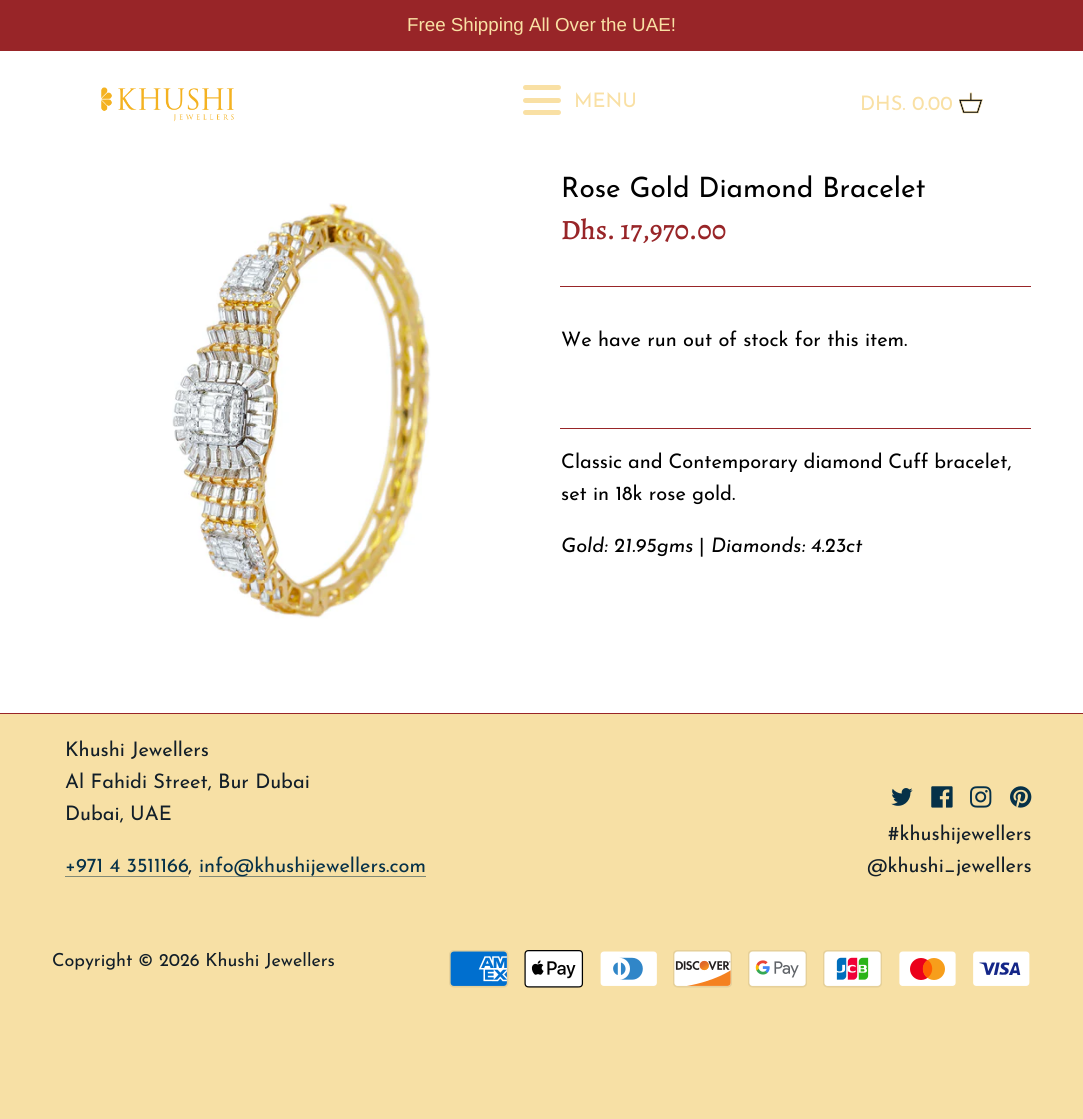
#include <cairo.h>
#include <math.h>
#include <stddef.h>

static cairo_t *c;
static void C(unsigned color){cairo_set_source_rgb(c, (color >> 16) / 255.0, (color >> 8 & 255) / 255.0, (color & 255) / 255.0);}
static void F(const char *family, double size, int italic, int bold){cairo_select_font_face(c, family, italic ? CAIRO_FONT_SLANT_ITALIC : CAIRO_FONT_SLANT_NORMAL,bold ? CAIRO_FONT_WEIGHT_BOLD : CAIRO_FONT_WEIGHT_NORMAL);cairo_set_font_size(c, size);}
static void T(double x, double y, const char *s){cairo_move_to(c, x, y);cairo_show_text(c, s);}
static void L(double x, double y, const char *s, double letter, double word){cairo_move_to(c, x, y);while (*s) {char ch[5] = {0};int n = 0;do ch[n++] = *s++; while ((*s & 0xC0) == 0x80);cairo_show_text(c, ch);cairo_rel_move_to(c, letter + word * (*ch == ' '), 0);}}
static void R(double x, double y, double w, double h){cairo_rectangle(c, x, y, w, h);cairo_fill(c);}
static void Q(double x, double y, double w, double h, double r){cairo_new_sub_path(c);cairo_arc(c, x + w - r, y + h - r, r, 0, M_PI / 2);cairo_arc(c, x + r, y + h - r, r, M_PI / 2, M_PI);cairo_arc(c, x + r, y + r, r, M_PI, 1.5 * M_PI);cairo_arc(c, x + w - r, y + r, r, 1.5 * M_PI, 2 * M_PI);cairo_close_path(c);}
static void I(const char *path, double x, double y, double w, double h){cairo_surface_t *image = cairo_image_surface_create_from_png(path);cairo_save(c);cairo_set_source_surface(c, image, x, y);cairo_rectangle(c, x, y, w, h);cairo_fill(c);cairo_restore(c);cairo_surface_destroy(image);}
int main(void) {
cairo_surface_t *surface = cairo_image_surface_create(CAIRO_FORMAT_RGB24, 1083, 1119);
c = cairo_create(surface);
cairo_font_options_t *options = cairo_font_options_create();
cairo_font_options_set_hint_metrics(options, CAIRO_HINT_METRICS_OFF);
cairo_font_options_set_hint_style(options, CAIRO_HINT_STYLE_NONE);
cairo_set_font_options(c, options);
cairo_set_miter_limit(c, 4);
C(0xf7e0a5);
cairo_paint(c);
C(0xffffff);
R(0,51,1083,662);
C(0x982528);
R(0,0,1083,51);
F("Liberation Sans",18.75,0,0);
C(0xf9e0a4);
T(407,31,"Free Shipping All Over the UAE!");
I("1.png",101,87,133,35);
Q(523,85,38,5,2.5);
cairo_fill(c);
Q(523,98,38,5,2.5);
cairo_fill(c);
F("Josefin Sans",20,0,0);
T(574,107,"MENU");
Q(523,110,38,5,2.5);
cairo_fill(c);
T(860,110,"DHS. 0.00");
I("2.png",959,92,24,22);
I("3.png",172,203,259,416);
C(0x982528);
R(560,286,471,1);
F("Josefin Sans",28,0,0);
C(0x000000);
T(561,197,"Rose Gold Diamond Bracelet");
F("Alegreya Medium",28,0,0);
C(0x982528);
T(561,239,"Dhs. 17,970.00");
R(560,428,471,1);
F("Josefin Sans",20,0,0);
C(0x000000);
T(561,346,"We have run out of stock for this item.");
L(561,468,"Classic and Contemporary diamond Cuff bracelet,",0,-.5);
T(561,500,"set in 18k rose gold.");
F("Josefin Sans",20,1,0);
T(561,552,"Gold: 21.95gms");
F("Josefin Sans",20,0,0);
T(699,552,"|");
F("Josefin Sans",20,1,0);
T(711,552,"Diamonds: 4.23ct");
C(0x982528);
R(0,713,1083,1);
F("Josefin Sans",20,0,0);
C(0x121e28);
T(65,756,"Khushi Jewellers");
T(65,788,"Al Fahidi Street, Bur Dubai");
T(65,820,"Dubai, UAE");
C(0x063148);
T(65,872,"+971 4 3511166");
C(0x7f8977);
R(65,876,124,1);
C(0x121e28);
T(188,872,",");
C(0x7f8977);
R(199,876,227,1);
C(0x063148);
T(199,872,"info@khushijewellers.com");
I("4.png",891,788,22,18);
I("5.png",931,786,22,22);
I("6.png",970,786,22,22);
I("7.png",1010,786,22,22);
C(0x121e28);
T(888,840,"#khushijewellers");
T(867,872,"@khushi_jewellers");
F("Josefin Sans",18,0,0);
T(52,966,"Copyright © 2026 Khushi Jewellers");
I("8.png",449,950,60,38);
I("9.png",524,950,60,38);
I("10.png",600,951,57,35);
I("11.png",673,950,59,38);
I("12.png",748,950,59,38);
I("13.png",823,950,59,38);
I("14.png",899,951,57,35);
I("15.png",973,951,57,35);
cairo_surface_write_to_png(surface, "o.png");
cairo_font_options_destroy(options);
cairo_destroy(c);
cairo_surface_destroy(surface);
return 0;
}
